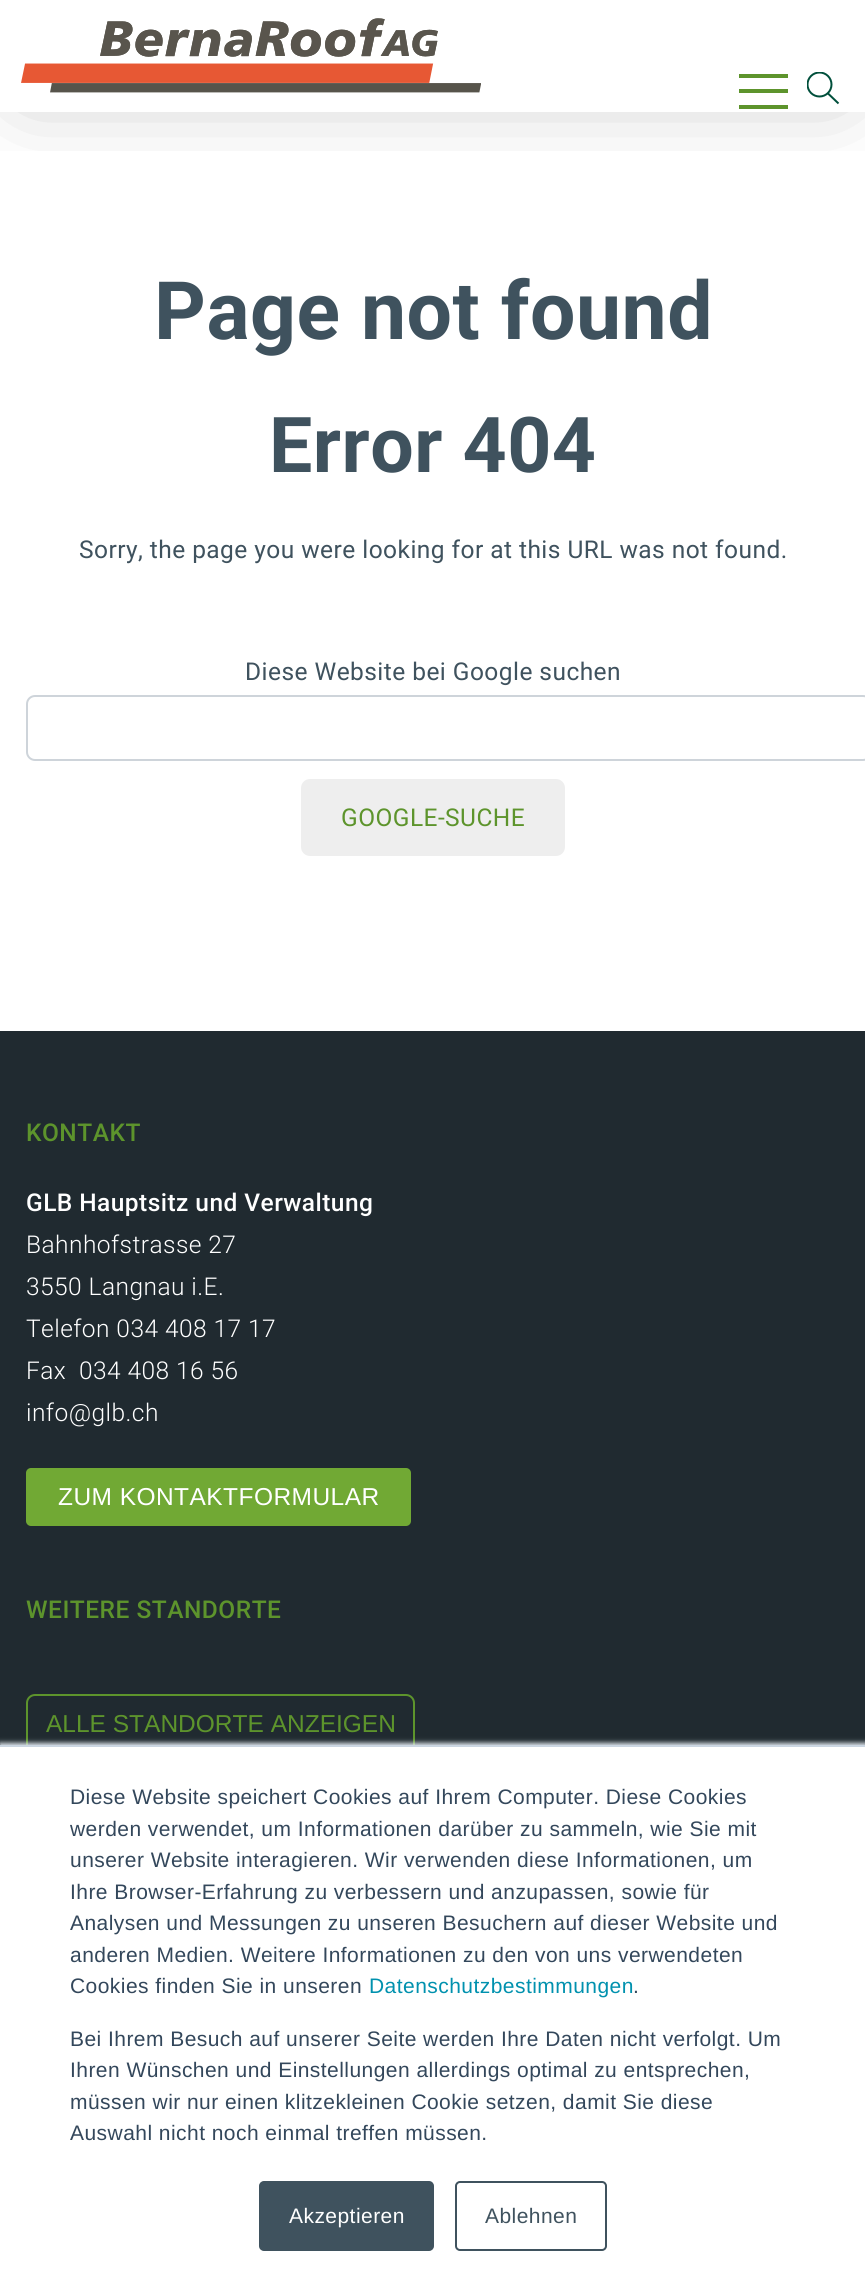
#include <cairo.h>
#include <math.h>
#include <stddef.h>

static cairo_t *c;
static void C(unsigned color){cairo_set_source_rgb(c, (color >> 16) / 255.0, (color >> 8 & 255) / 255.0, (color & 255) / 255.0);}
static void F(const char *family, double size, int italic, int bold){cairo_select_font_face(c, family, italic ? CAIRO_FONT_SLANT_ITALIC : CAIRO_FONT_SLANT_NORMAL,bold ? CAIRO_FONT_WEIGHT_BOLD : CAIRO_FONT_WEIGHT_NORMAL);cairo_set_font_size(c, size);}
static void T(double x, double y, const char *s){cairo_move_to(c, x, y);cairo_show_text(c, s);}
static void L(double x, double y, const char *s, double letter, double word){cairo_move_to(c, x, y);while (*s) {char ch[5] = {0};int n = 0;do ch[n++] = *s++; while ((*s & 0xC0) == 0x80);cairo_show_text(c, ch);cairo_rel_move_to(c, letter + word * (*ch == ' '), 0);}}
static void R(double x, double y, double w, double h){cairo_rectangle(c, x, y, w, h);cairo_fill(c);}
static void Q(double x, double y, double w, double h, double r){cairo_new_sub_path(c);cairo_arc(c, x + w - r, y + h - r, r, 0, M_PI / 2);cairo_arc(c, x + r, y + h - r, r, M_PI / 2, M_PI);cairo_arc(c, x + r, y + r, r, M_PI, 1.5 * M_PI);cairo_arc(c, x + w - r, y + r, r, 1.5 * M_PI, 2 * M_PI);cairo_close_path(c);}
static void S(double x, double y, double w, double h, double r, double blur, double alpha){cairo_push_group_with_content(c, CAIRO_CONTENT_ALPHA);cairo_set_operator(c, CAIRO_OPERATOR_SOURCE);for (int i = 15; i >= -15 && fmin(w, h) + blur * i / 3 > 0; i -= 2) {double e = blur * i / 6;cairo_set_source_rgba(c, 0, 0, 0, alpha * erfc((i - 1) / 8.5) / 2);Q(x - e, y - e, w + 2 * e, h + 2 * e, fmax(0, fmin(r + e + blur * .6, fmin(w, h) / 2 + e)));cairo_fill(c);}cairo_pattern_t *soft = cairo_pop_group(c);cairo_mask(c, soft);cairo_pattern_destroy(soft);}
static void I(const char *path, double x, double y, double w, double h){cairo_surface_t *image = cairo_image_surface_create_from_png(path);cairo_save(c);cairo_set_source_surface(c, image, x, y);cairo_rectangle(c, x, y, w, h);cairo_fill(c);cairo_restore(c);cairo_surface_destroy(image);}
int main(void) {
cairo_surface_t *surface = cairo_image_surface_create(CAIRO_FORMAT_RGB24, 865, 2296);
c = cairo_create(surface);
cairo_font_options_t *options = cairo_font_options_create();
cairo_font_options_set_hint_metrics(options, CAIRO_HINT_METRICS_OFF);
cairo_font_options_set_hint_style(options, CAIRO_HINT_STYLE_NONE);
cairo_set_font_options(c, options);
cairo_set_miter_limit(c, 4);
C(0xffffff);
cairo_paint(c);
cairo_save(c);
cairo_rectangle(c,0,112,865,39);
cairo_clip(c);
C(0x000000);
S(26,26,814,60,0,44,.3);
cairo_restore(c);
I("1.png",21,18,460,75);
C(0x5d942c);
R(739,74,49,4);
R(739,89,49,4);
R(739,105,49,4);
cairo_save(c);
cairo_rectangle(c,807,72,33,33);
cairo_clip(c);
cairo_arc(c,819.5,84.5,12,0,2 * M_PI);
C(0x004f3b);
cairo_stroke(c);
cairo_restore(c);
cairo_new_path(c);
cairo_move_to(c,827.5,93);
cairo_line_to(c,838.5,103.5);
C(0x004f3b);
cairo_stroke(c);
F("Roboto",80.5,0,1);
C(0x3f525e);
L(154,339,"Page not found",.5,0);
F("Roboto",77,0,1);
L(269,472,"Error 404",.5,0);
F("Roboto",24.5,0,0);
L(79,558,"Sorry, the page you were looking for at this URL was not found.",.45,0);
L(245,680,"Diese Website bei Google suchen",.45,0);
Q(27,696,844,64,8);
C(0xced4da);
cairo_stroke(c);
C(0xeeeeee);
Q(301,779,264,77,9);
cairo_fill(c);
C(0x5d942c);
L(341,826,"GOOGLE-SUCHE",.45,0);
C(0x202a30);
R(0,1031,865,714);
F("Roboto Medium",24.5,0,0);
C(0x5d942c);
L(26,1141,"KONTAKT",.5,0);
C(0xffffff);
L(26,1211,"GLB Hauptsitz und Verwaltung",.45,0);
F("Roboto Light",24.5,0,0);
L(26,1253,"Bahnhofstrasse 27",.45,0);
L(26,1295,"3550 Langnau i.E.",.45,0);
L(26,1337,"Telefon 034 408 17 17",.45,0);
L(26,1379,"Fax",.45,0);
L(79,1379,"034 408 16 56",.45,0);
L(26,1421,"info@glb.ch",.45,0);
C(0x71a934);
Q(26,1468,385,58,5);
cairo_fill(c);
F("Liberation Sans",24.5,0,0);
C(0xffffff);
L(58,1505,"ZUM KONTAKTFORMULAR",.45,0);
F("Roboto Medium",24.5,0,0);
C(0x5d942c);
L(26,1618,"WEITERE STANDORTE",.5,0);
Q(27,1695,387,58,8);
cairo_stroke(c);
F("Liberation Sans",24.5,0,0);
T(46,1732,"ALLE STANDORTE ANZEIGEN");
C(0xeaf0f6);
S(0,1743,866,551,0,2.5,1);
C(0xffffff);
R(0,1747,865,549);
C(0xcbd6e2);
R(0,1745,865,2);
F("Liberation Sans",21,0,0);
C(0x33475b);
L(70,1804,"Diese Website speichert Cookies auf Ihrem Computer. Diese Cookies",.45,0);
L(70,1836,"werden verwendet, um Informationen darüber zu sammeln, wie Sie mit",.45,0);
L(70,1867,"unserer Website interagieren. Wir verwenden diese Informationen, um",.45,0);
L(70,1899,"Ihre Browser-Erfahrung zu verbessern und anzupassen, sowie für",.45,0);
L(70,1930,"Analysen und Messungen zu unseren Besuchern auf dieser Website und",.45,0);
L(70,1962,"anderen Medien. Weitere Informationen zu den von uns verwendeten",.45,0);
L(70,1993,"Cookies finden Sie in unseren",.45,0);
C(0x0091ae);
L(369,1993,"Datenschutzbestimmungen",.45,0);
C(0x33475b);
L(633,1993,".",.45,0);
L(70,2046,"Bei Ihrem Besuch auf unserer Seite werden Ihre Daten nicht verfolgt. Um",.45,0);
L(70,2077,"Ihren Wünschen und Einstellungen allerdings optimal zu entsprechen,",.45,0);
L(70,2109,"müssen wir nur einen klitzekleinen Cookie setzen, damit Sie diese",.45,0);
L(70,2140,"Auswahl nicht noch einmal treffen müssen.",.45,0);
C(0x3f525e);
Q(260,2182,173,68,4);
cairo_fill_preserve(c);
cairo_stroke(c);
C(0xffffff);
L(289,2223,"Akzeptieren",.45,0);
Q(456,2182,150,68,4);
C(0x3f525e);
cairo_stroke(c);
L(485,2223,"Ablehnen",.45,0);
cairo_surface_write_to_png(surface, "o.png");
cairo_font_options_destroy(options);
cairo_destroy(c);
cairo_surface_destroy(surface);
return 0;
}
